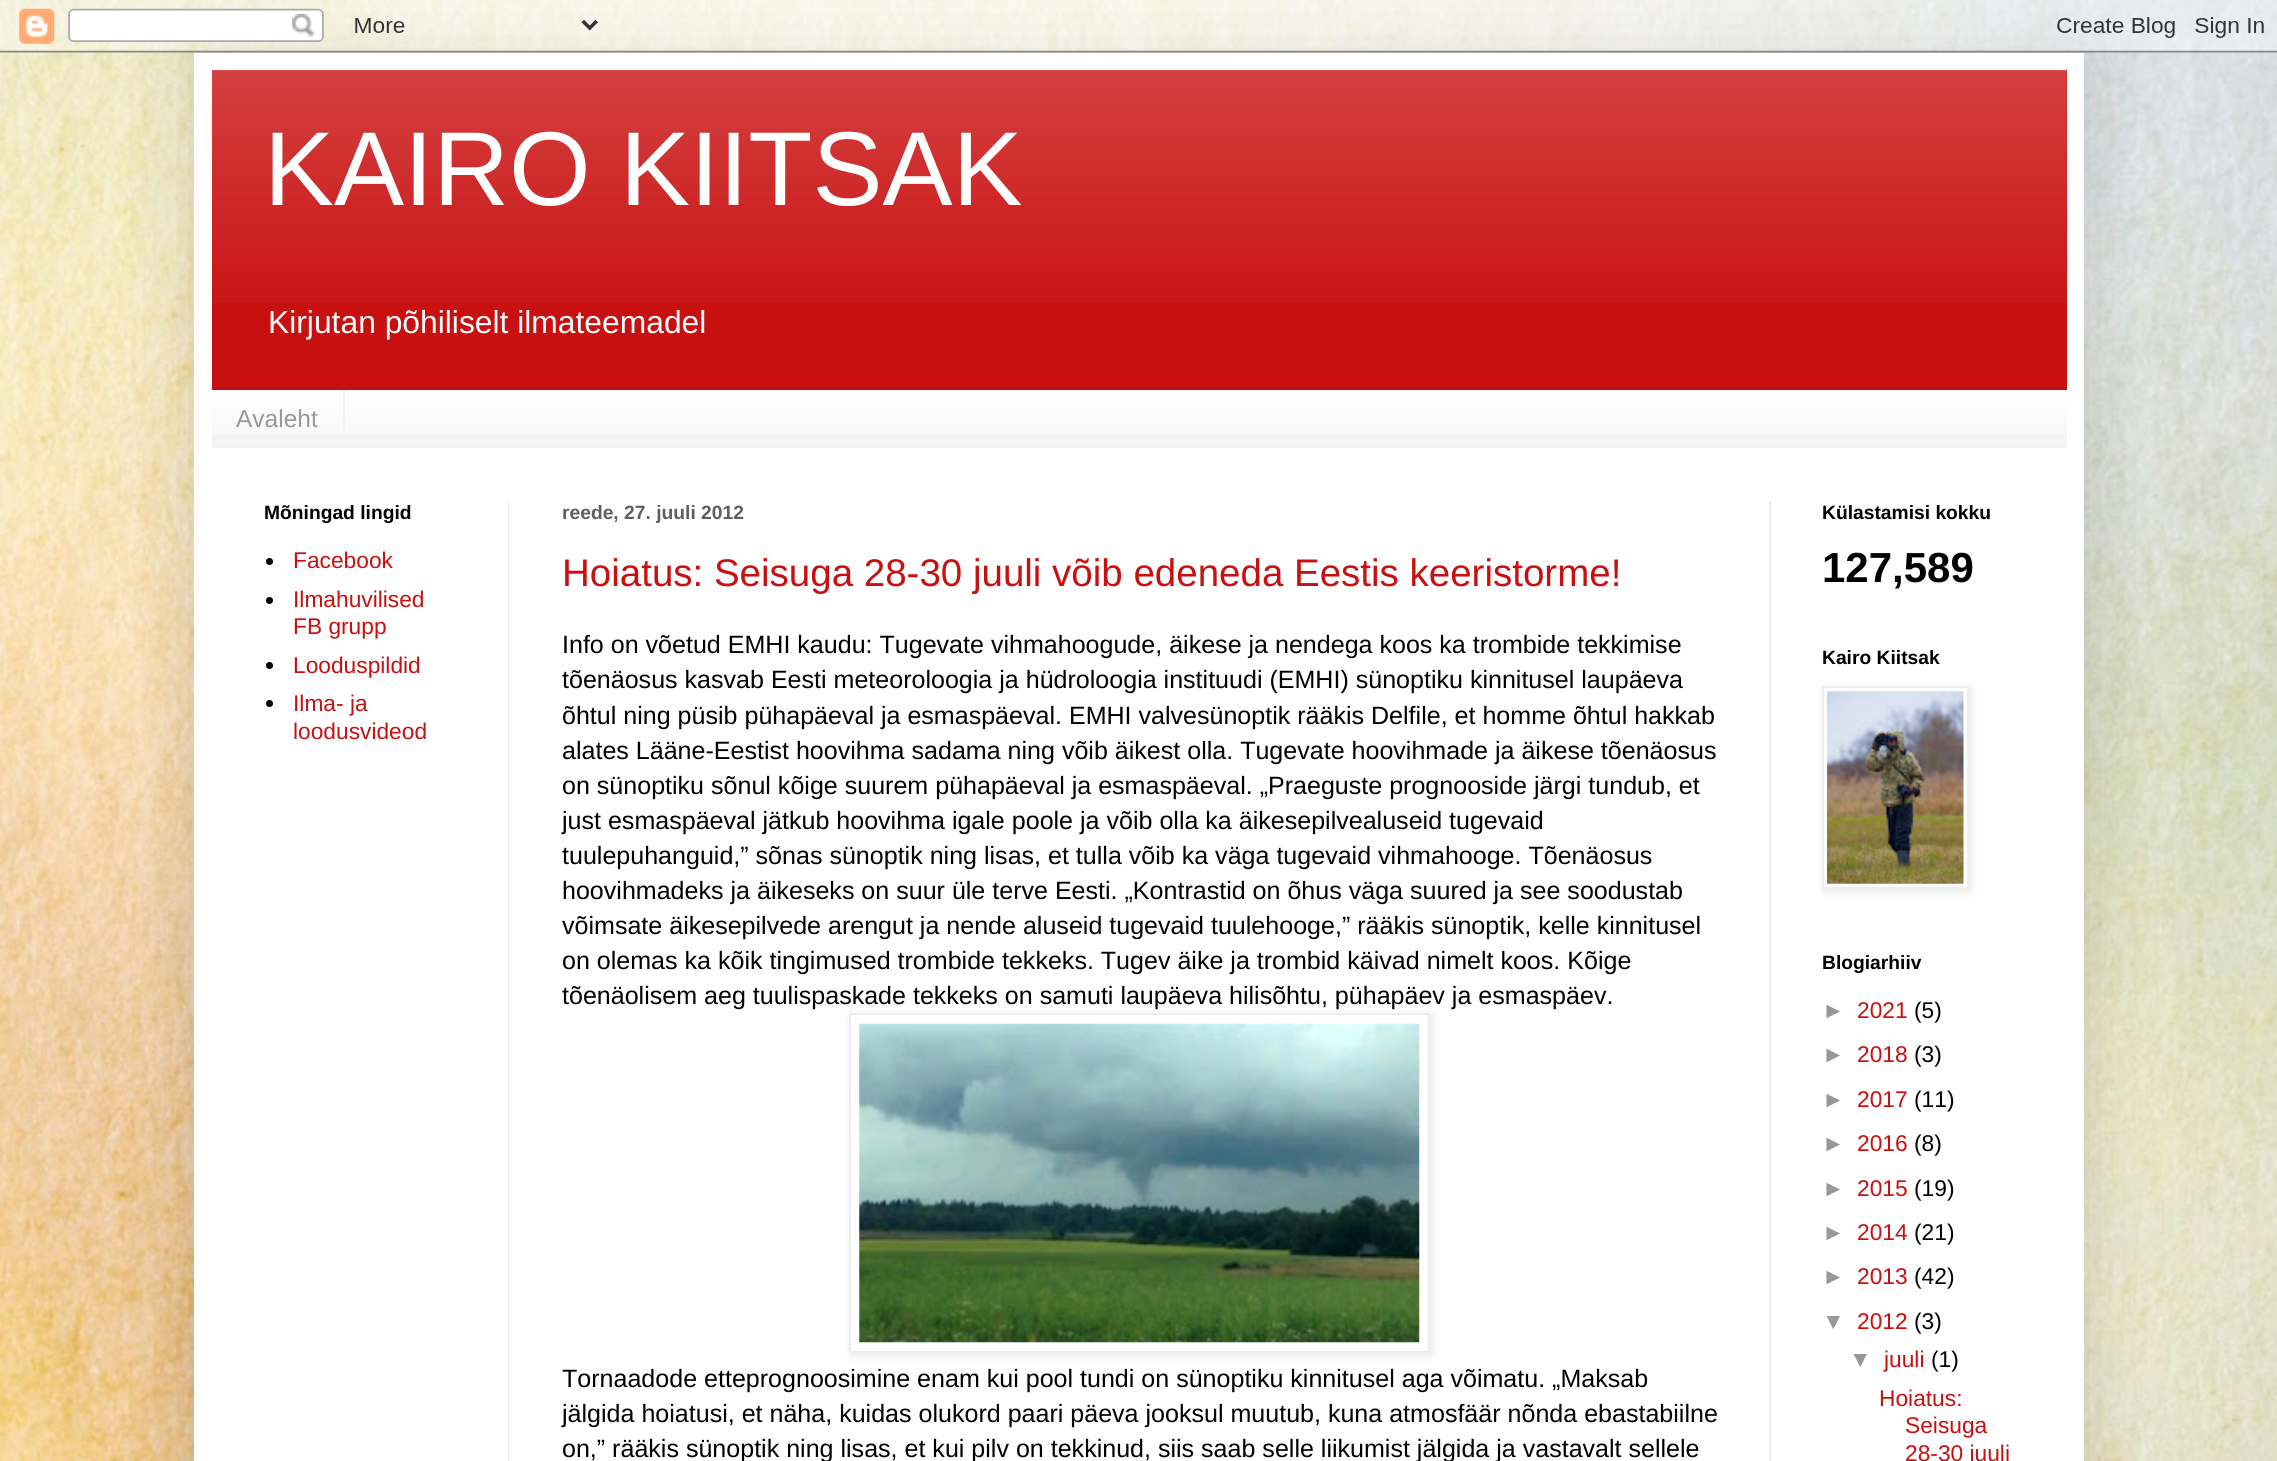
#include <cairo.h>
#include <math.h>
#include <stddef.h>

static cairo_t *c;
static void C(unsigned color){cairo_set_source_rgb(c, (color >> 16) / 255.0, (color >> 8 & 255) / 255.0, (color & 255) / 255.0);}
static void F(const char *family, double size, int italic, int bold){cairo_select_font_face(c, family, italic ? CAIRO_FONT_SLANT_ITALIC : CAIRO_FONT_SLANT_NORMAL,bold ? CAIRO_FONT_WEIGHT_BOLD : CAIRO_FONT_WEIGHT_NORMAL);cairo_set_font_size(c, size);}
static void T(double x, double y, const char *s){cairo_move_to(c, x, y);cairo_show_text(c, s);}
static void R(double x, double y, double w, double h){cairo_rectangle(c, x, y, w, h);cairo_fill(c);}
static void Q(double x, double y, double w, double h, double r){cairo_new_sub_path(c);cairo_arc(c, x + w - r, y + h - r, r, 0, M_PI / 2);cairo_arc(c, x + r, y + h - r, r, M_PI / 2, M_PI);cairo_arc(c, x + r, y + r, r, M_PI, 1.5 * M_PI);cairo_arc(c, x + w - r, y + r, r, 1.5 * M_PI, 2 * M_PI);cairo_close_path(c);}
static void S(double x, double y, double w, double h, double r, double blur, double alpha){cairo_push_group_with_content(c, CAIRO_CONTENT_ALPHA);cairo_set_operator(c, CAIRO_OPERATOR_SOURCE);for (int i = 15; i >= -15 && fmin(w, h) + blur * i / 3 > 0; i -= 2) {double e = blur * i / 6;cairo_set_source_rgba(c, 0, 0, 0, alpha * erfc((i - 1) / 8.5) / 2);Q(x - e, y - e, w + 2 * e, h + 2 * e, fmax(0, fmin(r + e + blur * .6, fmin(w, h) / 2 + e)));cairo_fill(c);}cairo_pattern_t *soft = cairo_pop_group(c);cairo_mask(c, soft);cairo_pattern_destroy(soft);}
static void I(const char *path, double x, double y, double w, double h){cairo_surface_t *image = cairo_image_surface_create_from_png(path);cairo_save(c);cairo_set_source_surface(c, image, x, y);cairo_rectangle(c, x, y, w, h);cairo_fill(c);cairo_restore(c);cairo_surface_destroy(image);}
int main(void) {
cairo_surface_t *surface = cairo_image_surface_create(CAIRO_FORMAT_RGB24, 2277, 1461);
c = cairo_create(surface);
cairo_font_options_t *options = cairo_font_options_create();
cairo_font_options_set_hint_metrics(options, CAIRO_HINT_METRICS_OFF);
cairo_font_options_set_hint_style(options, CAIRO_HINT_STYLE_NONE);
cairo_set_font_options(c, options);
cairo_set_miter_limit(c, 4);
C(0xffffff);
cairo_paint(c);
I("1.png",0,0,2277,1461);
C(0x000000);
S(194,53,1890,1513,0,35,.15);
I("2.png",0,0,2277,53);
C(0xffffff);
R(194,53,1890,1408);
C(0xc91010);
R(212,70,1855,320);
I("3.png",212,70,1855,233);
F("Liberation Sans",105,0,0);
C(0xffffff);
T(264,205,"KAIRO KIITSAK");
F("Liberation Sans",31.8,0,0);
T(268,333,"Kirjutan põhiliselt ilmateemadel");
C(0xf4f4f4);
R(212,390,1855,56);
I("4.png",212,390,1855,44);
C(0xf2f2f2);
R(212,446,1855,2);
R(343,390,2,44);
F("Liberation Sans",24.5,0,0);
C(0x989898);
T(236,427,"Avaleht");
C(0xededed);
R(508,501,1,960);
R(1769,501,2,960);
F("Liberation Sans",19.25,0,1);
C(0x000000);
T(264,519,"Mõningad lingid");
cairo_new_path(c);
cairo_arc(c,269.5,561.5,3.5,0,2 * M_PI);
cairo_fill(c);
F("Liberation Sans",22.75,0,0);
C(0xc91010);
T(293,568,"Facebook");
C(0x000000);
cairo_new_path(c);
cairo_arc(c,269.5,600.5,3.5,0,2 * M_PI);
cairo_fill(c);
C(0xc91010);
T(293,607,"Ilmahuvilised");
T(293,634,"FB grupp");
C(0x000000);
cairo_new_path(c);
cairo_arc(c,269.5,665.5,3.5,0,2 * M_PI);
cairo_fill(c);
C(0xc91010);
T(293,673,"Looduspildid");
C(0x000000);
cairo_new_path(c);
cairo_arc(c,269.5,703.5,3.5,0,2 * M_PI);
cairo_fill(c);
C(0xc91010);
T(293,711,"Ilma- ja");
T(293,739,"loodusvideod");
F("Liberation Sans",19.25,0,1);
C(0x5f5f5f);
T(562,519,"reede, 27. juuli 2012");
F("Liberation Sans",38.5,0,0);
C(0xc91010);
T(562,586,"Hoiatus: Seisuga 28-30 juuli võib edeneda Eestis keeristorme!");
F("Liberation Sans",25.05,0,0);
C(0x000000);
T(562,653,"Info on võetud EMHI kaudu: Tugevate vihmahoogude, äikese ja nendega koos ka trombide tekkimise");
T(562,688,"tõenäosus kasvab Eesti meteoroloogia ja hüdroloogia instituudi (EMHI) sünoptiku kinnitusel laupäeva");
T(562,724,"õhtul ning püsib pühapäeval ja esmaspäeval. EMHI valvesünoptik rääkis Delfile, et homme õhtul hakkab");
T(562,759,"alates Lääne-Eestist hoovihma sadama ning võib äikest olla. Tugevate hoovihmade ja äikese tõenäosus");
T(562,794,"on sünoptiku sõnul kõige suurem pühapäeval ja esmaspäeval. „Praeguste prognooside järgi tundub, et");
T(562,829,"just esmaspäeval jätkub hoovihma igale poole ja võib olla ka äikesepilvealuseid tugevaid");
T(562,864,"tuulepuhanguid,” sõnas sünoptik ning lisas, et tulla võib ka väga tugevaid vihmahooge. Tõenäosus");
T(562,899,"hoovihmadeks ja äikeseks on suur üle terve Eesti. „Kontrastid on õhus väga suured ja see soodustab");
T(562,934,"võimsate äikesepilvede arengut ja nende aluseid tugevaid tuulehooge,” rääkis sünoptik, kelle kinnitusel");
T(562,969,"on olemas ka kõik tingimused trombide tekkeks. Tugev äike ja trombid käivad nimelt koos. Kõige");
T(562,1004,"tõenäolisem aeg tuulispaskade tekkeks on samuti laupäeva hilisõhtu, pühapäev ja esmaspäev.");
C(0x000000);
S(851,1015,581,340,0,4.5,.1);
C(0xffffff);
cairo_rectangle(c,850,1014,579,338);
cairo_fill_preserve(c);
C(0xededed);
cairo_stroke(c);
I("5.png",859,1023,561,320);
C(0x000000);
T(562,1387,"Tornaadode etteprognoosimine enam kui pool tundi on sünoptiku kinnitusel aga võimatu. „Maksab");
T(562,1422,"jälgida hoiatusi, et näha, kuidas olukord paari päeva jooksul muutub, kuna atmosfäär nõnda ebastabiilne");
T(562,1457,"on,” rääkis sünoptik ning lisas, et kui pilv on tekkinud, siis saab selle liikumist jälgida ja vastavalt sellele");
F("Liberation Sans",19.25,0,1);
T(1822,519,"Külastamisi kokku");
F("Liberation Sans",42,0,1);
T(1822,582,"127,589");
F("Liberation Sans",19.25,0,1);
T(1822,664,"Kairo Kiitsak");
C(0x000000);
S(1824,688,147,203,0,4.5,.1);
C(0xffffff);
cairo_rectangle(c,1823,687,145,201);
cairo_fill_preserve(c);
C(0xededed);
cairo_stroke(c);
I("6.png",1827,691,137,193);
C(0x000000);
T(1822,969,"Blogiarhiiv");
F("Liberation Sans",22.75,0,0);
C(0x989898);
T(1822,1018,"►");
C(0xc91010);
T(1857,1018,"2021");
C(0x000000);
T(1914,1018,"(5)");
C(0x989898);
T(1822,1062,"►");
C(0xc91010);
T(1857,1062,"2018");
C(0x000000);
T(1914,1062,"(3)");
C(0x989898);
T(1822,1107,"►");
C(0xc91010);
T(1857,1107,"2017");
C(0x000000);
T(1914,1107,"(11)");
C(0x989898);
T(1822,1151,"►");
C(0xc91010);
T(1857,1151,"2016");
C(0x000000);
T(1914,1151,"(8)");
C(0x989898);
T(1822,1196,"►");
C(0xc91010);
T(1857,1196,"2015");
C(0x000000);
T(1914,1196,"(19)");
C(0x989898);
T(1822,1240,"►");
C(0xc91010);
T(1857,1240,"2014");
C(0x000000);
T(1914,1240,"(21)");
C(0x989898);
T(1822,1284,"►");
C(0xc91010);
T(1857,1284,"2013");
C(0x000000);
T(1914,1284,"(42)");
C(0x989898);
T(1822,1329,"▼");
C(0xc91010);
T(1857,1329,"2012");
C(0x000000);
T(1914,1329,"(3)");
C(0x989898);
T(1849,1367,"▼");
C(0xc91010);
T(1884,1367,"juuli");
C(0x000000);
T(1931,1367,"(1)");
C(0xc91010);
T(1879,1406,"Hoiatus:");
T(1905,1433,"Seisuga");
T(1905,1461,"28-30 juuli");
cairo_surface_write_to_png(surface, "o.png");
cairo_font_options_destroy(options);
cairo_destroy(c);
cairo_surface_destroy(surface);
return 0;
}
